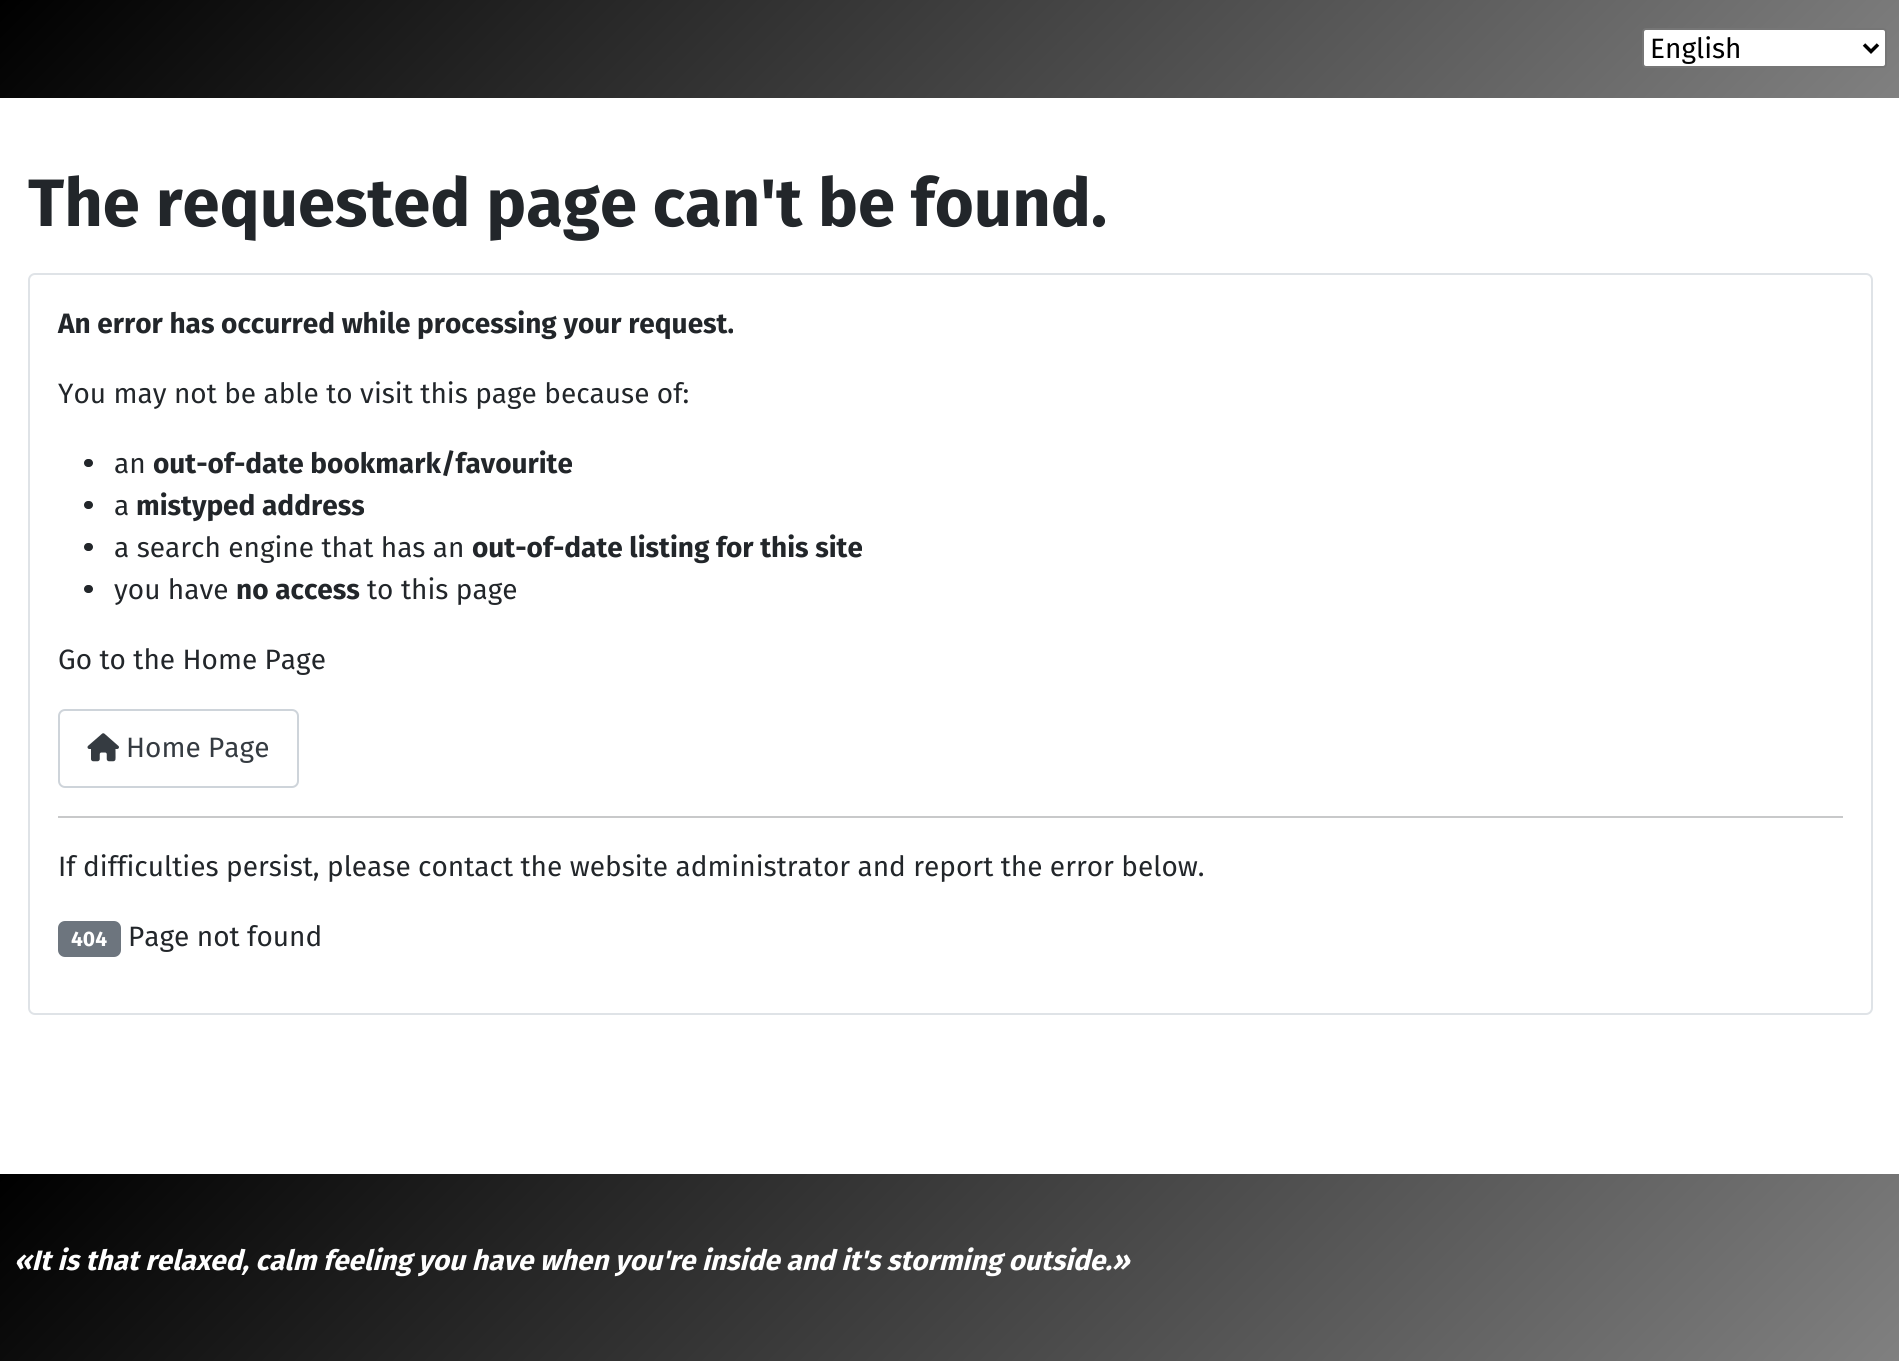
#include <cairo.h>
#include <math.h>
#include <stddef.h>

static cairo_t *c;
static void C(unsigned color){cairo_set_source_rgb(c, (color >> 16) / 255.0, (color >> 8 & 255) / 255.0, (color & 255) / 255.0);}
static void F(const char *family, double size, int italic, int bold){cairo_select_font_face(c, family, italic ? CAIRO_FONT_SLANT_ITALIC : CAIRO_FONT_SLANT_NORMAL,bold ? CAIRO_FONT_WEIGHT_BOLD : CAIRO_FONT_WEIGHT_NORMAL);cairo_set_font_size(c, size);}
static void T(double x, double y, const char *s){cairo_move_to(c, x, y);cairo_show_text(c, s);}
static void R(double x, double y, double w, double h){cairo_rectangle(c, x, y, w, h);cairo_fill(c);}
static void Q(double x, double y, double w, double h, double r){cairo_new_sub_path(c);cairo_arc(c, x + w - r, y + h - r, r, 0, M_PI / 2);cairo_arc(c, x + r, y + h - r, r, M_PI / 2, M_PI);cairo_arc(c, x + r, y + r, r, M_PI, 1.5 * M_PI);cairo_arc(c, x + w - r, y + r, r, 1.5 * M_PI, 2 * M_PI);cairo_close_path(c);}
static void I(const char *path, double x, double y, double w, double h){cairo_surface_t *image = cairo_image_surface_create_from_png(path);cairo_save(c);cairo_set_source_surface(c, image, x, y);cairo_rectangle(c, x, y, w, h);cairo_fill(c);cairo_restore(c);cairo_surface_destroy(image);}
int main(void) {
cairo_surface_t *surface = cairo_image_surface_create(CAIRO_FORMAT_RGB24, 1899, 1361);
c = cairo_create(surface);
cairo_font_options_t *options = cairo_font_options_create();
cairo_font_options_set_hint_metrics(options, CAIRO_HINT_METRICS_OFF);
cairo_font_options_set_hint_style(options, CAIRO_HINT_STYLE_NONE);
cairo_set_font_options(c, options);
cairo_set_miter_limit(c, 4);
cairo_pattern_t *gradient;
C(0xffffff);
cairo_paint(c);
gradient = cairo_pattern_create_linear(451,-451,1450,549);
cairo_pattern_add_color_stop_rgba(gradient,0,0,0,0,1);
cairo_pattern_add_color_stop_rgba(gradient,1,0.502,0.502,0.502,1);
cairo_set_source(c,gradient);
cairo_pattern_destroy(gradient);
R(0,0,1899,98);
C(0xffffff);
Q(1643,29,243,38,3);
cairo_fill_preserve(c);
C(0x767676);
cairo_stroke(c);
cairo_new_path(c);
cairo_move_to(c,1864,44.5);
cairo_line_to(c,1871,51.5);
cairo_line_to(c,1878,44.5);
C(0x000000);
cairo_set_line_width(c,3.5);
cairo_stroke(c);
F("Fira Sans",28,0,0);
T(1650,58,"English");
F("Fira Sans",67,0,1);
C(0x22262a);
T(28,226,"The requested page can't be found.");
Q(29,274,1843,740,6);
C(0xdfe3e7);
cairo_set_line_width(c,2);
cairo_stroke(c);
F("Fira Sans",28,0,1);
C(0x22262a);
T(58,333,"An error has occurred while processing your request.");
F("Fira Sans",28,0,0);
T(58,403,"You may not be able to visit this page because of:");
Q(84,459,9,8,4);
cairo_fill(c);
T(114,473,"an");
F("Fira Sans",28,0,1);
T(153,473,"out-of-date bookmark/favourite");
Q(84,501,9,8,4);
cairo_fill(c);
F("Fira Sans",28,0,0);
T(114,515,"a");
F("Fira Sans",28,0,1);
T(136,515,"mistyped address");
Q(84,543,9,8,4);
cairo_fill(c);
F("Fira Sans",28,0,0);
T(114,557,"a search engine that has an");
F("Fira Sans",28,0,1);
T(472,557,"out-of-date listing for this site");
Q(84,585,9,8,4);
cairo_fill(c);
F("Fira Sans",28,0,0);
T(114,599,"you have");
F("Fira Sans",28,0,1);
T(236,599,"no access");
F("Fira Sans",28,0,0);
T(367,599,"to this page");
T(58,669,"Go to the Home Page");
Q(59,710,239,77,6);
C(0xced4da);
cairo_stroke(c);
I("1.png",87,733,32,29);
C(0x353b41);
T(126,757,"Home Page");
C(0xc8c9ca);
R(58,816,1785,2);
C(0x22262a);
T(58,876,"If difficulties persist, please contact the website administrator and report the error below.");
C(0x6d757e);
Q(58,921,63,36,7);
cairo_fill(c);
F("Fira Sans",21,0,1);
C(0xffffff);
T(71,946,"404");
F("Fira Sans",28,0,0);
C(0x22262a);
T(128,946,"Page not found");
gradient = cairo_pattern_create_linear(428,746,1472,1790);
cairo_pattern_add_color_stop_rgba(gradient,0,0,0,0,1);
cairo_pattern_add_color_stop_rgba(gradient,1,0.502,0.502,0.502,1);
cairo_set_source(c,gradient);
cairo_pattern_destroy(gradient);
R(0,1174,1899,187);
F("Fira Sans",28,1,1);
C(0xffffff);
T(14,1270,"«It is that relaxed, calm feeling you have when you're inside and it's storming outside.»");
cairo_surface_write_to_png(surface, "o.png");
cairo_font_options_destroy(options);
cairo_destroy(c);
cairo_surface_destroy(surface);
return 0;
}
